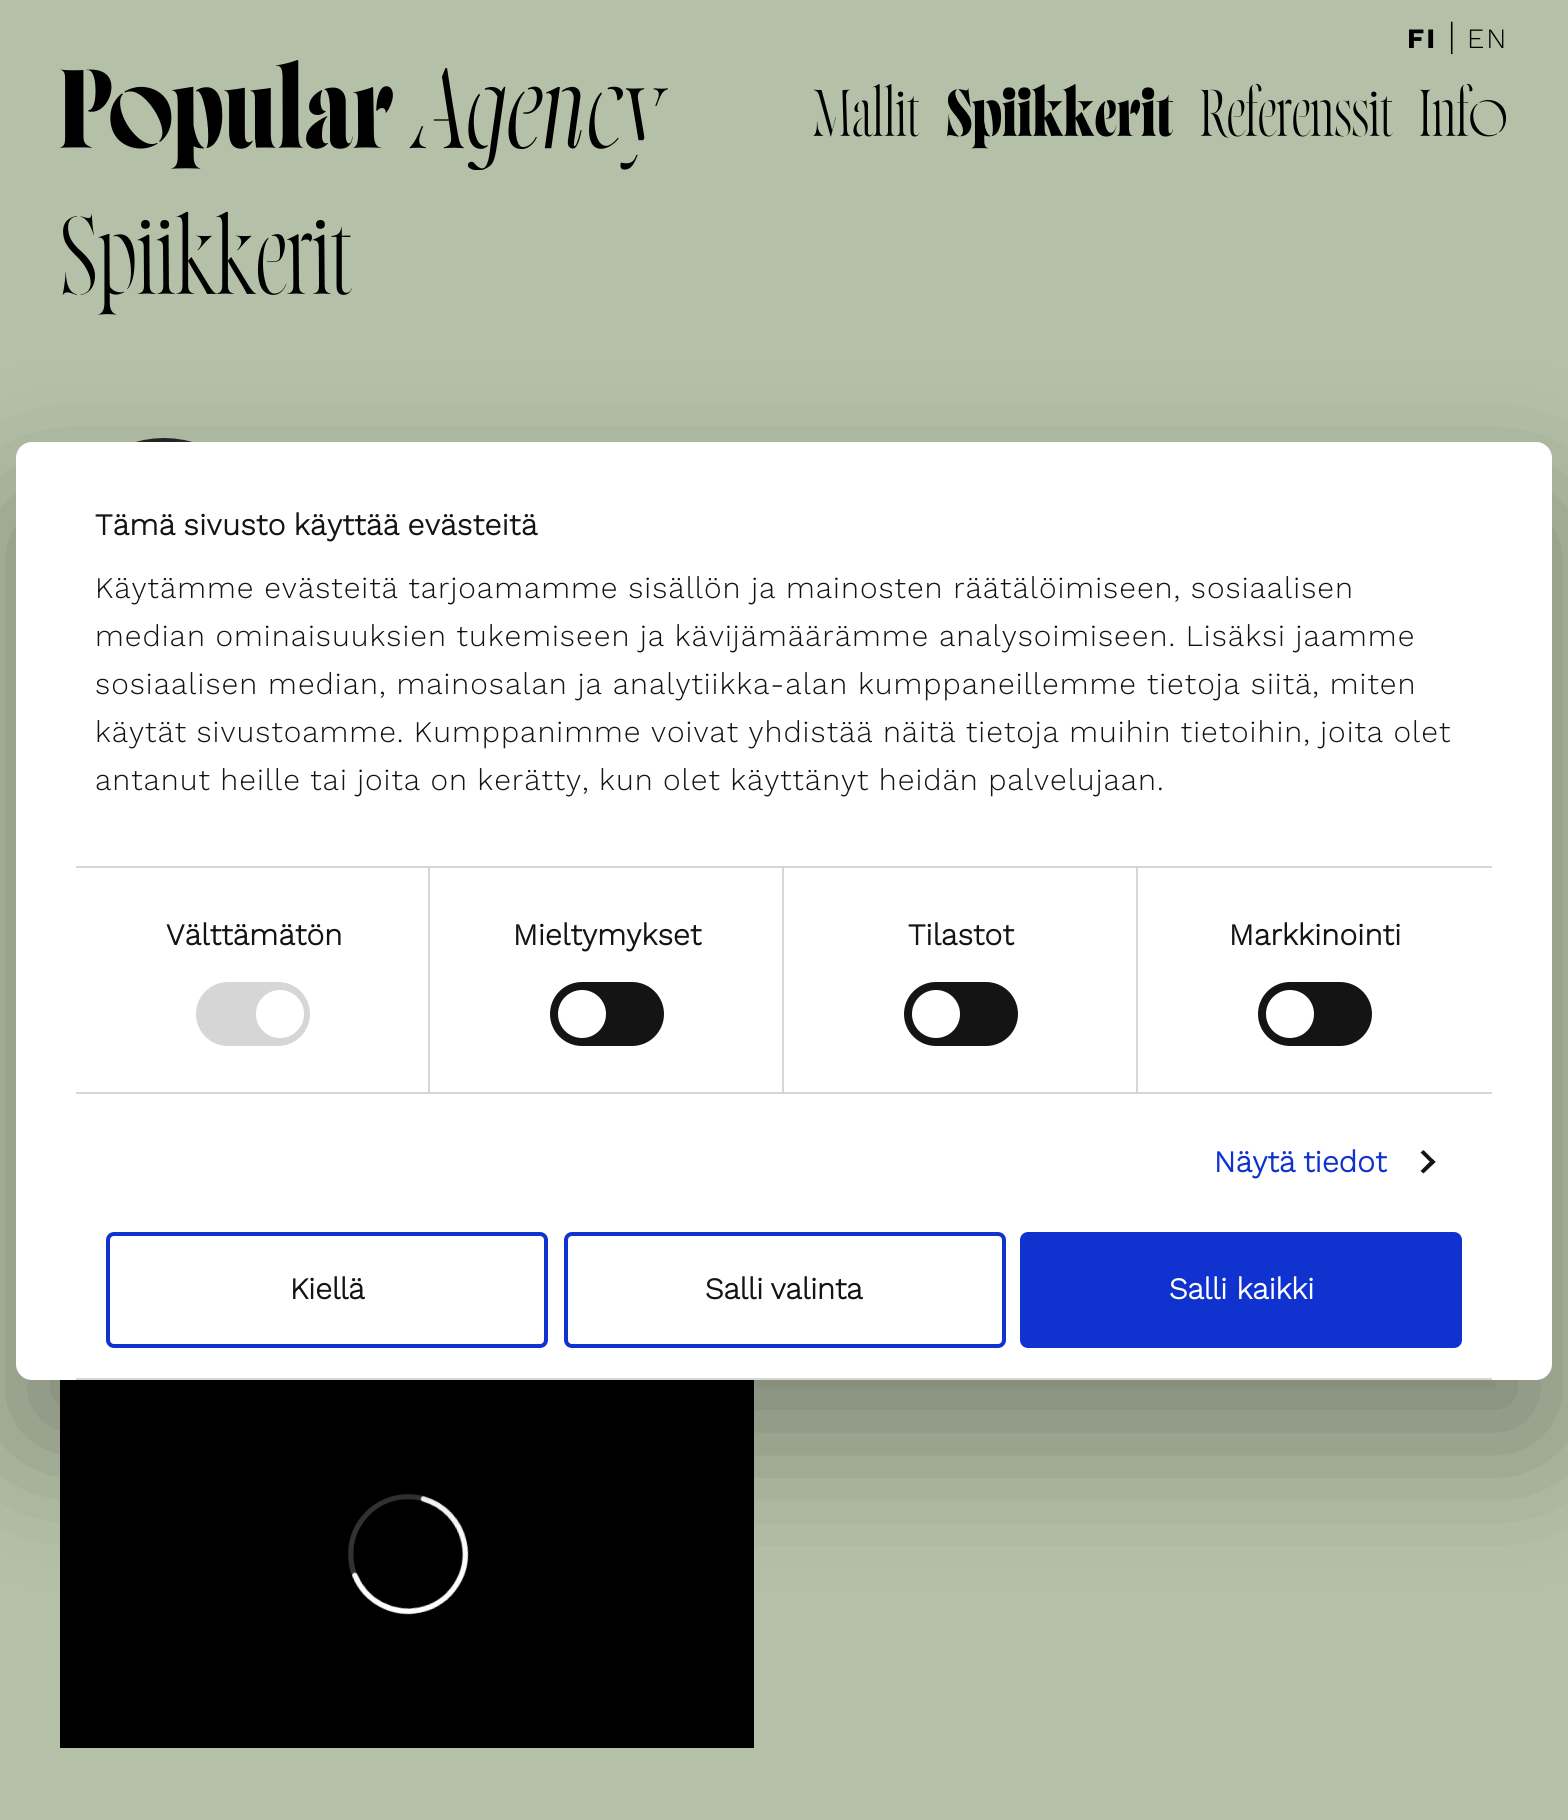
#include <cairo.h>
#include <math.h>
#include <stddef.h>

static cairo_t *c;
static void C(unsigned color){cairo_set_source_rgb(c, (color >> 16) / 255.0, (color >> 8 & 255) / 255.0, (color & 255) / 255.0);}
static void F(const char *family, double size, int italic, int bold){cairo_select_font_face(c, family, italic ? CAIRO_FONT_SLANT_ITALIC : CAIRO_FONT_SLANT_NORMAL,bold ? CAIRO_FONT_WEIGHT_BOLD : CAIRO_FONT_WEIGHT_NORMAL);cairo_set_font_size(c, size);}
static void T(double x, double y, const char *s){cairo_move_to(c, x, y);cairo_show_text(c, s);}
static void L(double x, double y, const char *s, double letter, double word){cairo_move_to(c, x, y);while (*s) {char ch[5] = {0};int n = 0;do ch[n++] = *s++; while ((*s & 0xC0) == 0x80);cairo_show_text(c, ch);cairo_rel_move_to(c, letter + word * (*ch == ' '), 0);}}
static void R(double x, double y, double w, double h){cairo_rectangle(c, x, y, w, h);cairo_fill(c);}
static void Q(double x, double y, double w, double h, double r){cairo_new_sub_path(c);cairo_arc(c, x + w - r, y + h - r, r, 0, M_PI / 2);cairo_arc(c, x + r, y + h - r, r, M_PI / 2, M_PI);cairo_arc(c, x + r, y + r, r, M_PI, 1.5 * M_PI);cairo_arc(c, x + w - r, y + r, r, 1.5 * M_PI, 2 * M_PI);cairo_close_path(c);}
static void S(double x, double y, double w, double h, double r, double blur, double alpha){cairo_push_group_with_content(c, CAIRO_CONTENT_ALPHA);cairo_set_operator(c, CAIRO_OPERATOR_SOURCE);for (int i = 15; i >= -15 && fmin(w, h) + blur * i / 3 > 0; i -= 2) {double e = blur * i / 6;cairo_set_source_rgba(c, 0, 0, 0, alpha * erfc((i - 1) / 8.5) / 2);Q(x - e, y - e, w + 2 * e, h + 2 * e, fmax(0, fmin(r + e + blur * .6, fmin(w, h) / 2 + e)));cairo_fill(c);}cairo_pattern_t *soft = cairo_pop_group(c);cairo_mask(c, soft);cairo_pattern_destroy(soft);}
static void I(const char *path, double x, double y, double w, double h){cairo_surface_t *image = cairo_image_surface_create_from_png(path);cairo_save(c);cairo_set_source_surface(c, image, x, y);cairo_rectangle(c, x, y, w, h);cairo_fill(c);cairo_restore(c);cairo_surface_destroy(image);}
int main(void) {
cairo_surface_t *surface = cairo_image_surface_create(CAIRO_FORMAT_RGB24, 1568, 1820);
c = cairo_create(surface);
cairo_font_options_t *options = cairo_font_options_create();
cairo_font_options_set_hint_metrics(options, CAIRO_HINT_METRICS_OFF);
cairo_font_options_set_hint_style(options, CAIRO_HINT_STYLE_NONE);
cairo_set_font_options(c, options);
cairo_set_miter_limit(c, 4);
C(0xb4c0a7);
cairo_paint(c);
F("Work Sans",28,0,1);
C(0x000000);
L(1407,48,"FI",2,0);
F("Work Sans Light",36,0,0);
T(1448,48,"|");
F("Work Sans Light",28,0,0);
L(1467,48,"EN",2,0);
I("1.png",60,60,608,110);
F("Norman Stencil",54,0,0);
T(812,136,"Mallit");
F("Norman Stencil ExtraBold",54,0,0);
T(947,136,"Spiikkerit");
F("Norman Stencil",54,0,0);
T(1199,136,"Referenssit");
T(1418,136,"Info");
F("Norman Stencil",90,0,0);
T(60,294,"Spiikkerit");
I("2.png",136,438,56,4);
I("3.png",60,1380,694,368);
C(0x000000);
S(16,506,1536,938,16,68,.3);
C(0xffffff);
Q(16,442,1536,938,16);
cairo_fill(c);
C(0xd6d6d6);
R(76,866,1416,2);
F("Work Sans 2",30,0,1);
C(0x141414);
L(95,535,"Tämä sivusto käyttää evästeitä",.5,-2);
F("Work Sans Light",30,0,0);
L(95,598,"Käytämme evästeitä tarjoamamme sisällön ja mainosten räätälöimiseen, sosiaalisen",1,-.75);
L(95,646,"median ominaisuuksien tukemiseen ja kävijämäärämme analysoimiseen. Lisäksi jaamme",1,-.75);
L(95,694,"sosiaalisen median, mainosalan ja analytiikka-alan kumppaneillemme tietoja siitä, miten",1,-.5);
L(95,742,"käytät sivustoamme. Kumppanimme voivat yhdistää näitä tietoja muihin tietoihin, joita olet",1,-1);
L(95,790,"antanut heille tai joita on kerätty, kun olet käyttänyt heidän palvelujaan.",1,-1);
C(0xd6d6d6);
R(76,1092,1416,2);
R(428,868,2,224);
F("Work Sans 2",30,0,1);
C(0x141414);
L(166,945,"Välttämätön",.25,0);
C(0xd6d6d6);
Q(196,982,114,64,32);
cairo_fill(c);
C(0xffffff);
cairo_arc(c,280,1014,24,0,2 * M_PI);
cairo_fill(c);
C(0xd6d6d6);
R(782,868,2,224);
C(0x141414);
L(513,945,"Mieltymykset",.25,0);
Q(550,982,114,64,32);
cairo_fill(c);
C(0xffffff);
cairo_arc(c,582,1014,24,0,2 * M_PI);
cairo_fill(c);
C(0xd6d6d6);
R(1136,868,2,224);
C(0x141414);
L(908,945,"Tilastot",.25,0);
Q(904,982,114,64,32);
cairo_fill(c);
C(0xffffff);
cairo_arc(c,936,1014,24,0,2 * M_PI);
cairo_fill(c);
C(0x141414);
L(1229,945,"Markkinointi",.25,0);
Q(1258,982,114,64,32);
cairo_fill(c);
C(0xffffff);
cairo_arc(c,1290,1014,24,0,2 * M_PI);
cairo_fill(c);
C(0x1032cf);
L(1214,1172,"Näytä tiedot",.25,-2);
C(0x141414);
cairo_new_path(c);
cairo_move_to(c,1423.5,1150);
cairo_line_to(c,1435.5,1162);
cairo_line_to(c,1432.5,1164.5);
cairo_line_to(c,1420.5,1152.5);
cairo_close_path(c);
cairo_fill(c);
cairo_new_path(c);
cairo_move_to(c,1432.5,1159);
cairo_line_to(c,1435.5,1162);
cairo_line_to(c,1423.5,1173.5);
cairo_line_to(c,1420.5,1171);
cairo_close_path(c);
cairo_fill(c);
C(0xd6d6d6);
R(76,1378,1416,2);
Q(108,1234,438,112,6);
C(0x1032cf);
cairo_set_line_width(c,4);
cairo_stroke(c);
C(0x141414);
T(290,1299,"Kiellä");
Q(566,1234,438,112,6);
C(0x1032cf);
cairo_stroke(c);
C(0x141414);
L(705,1299,"Salli valinta",0,-2);
C(0x1032cf);
Q(1022,1234,438,112,6);
cairo_fill_preserve(c);
cairo_stroke(c);
C(0xffffff);
T(1169,1299,"Salli kaikki");
cairo_surface_write_to_png(surface, "o.png");
cairo_font_options_destroy(options);
cairo_destroy(c);
cairo_surface_destroy(surface);
return 0;
}
